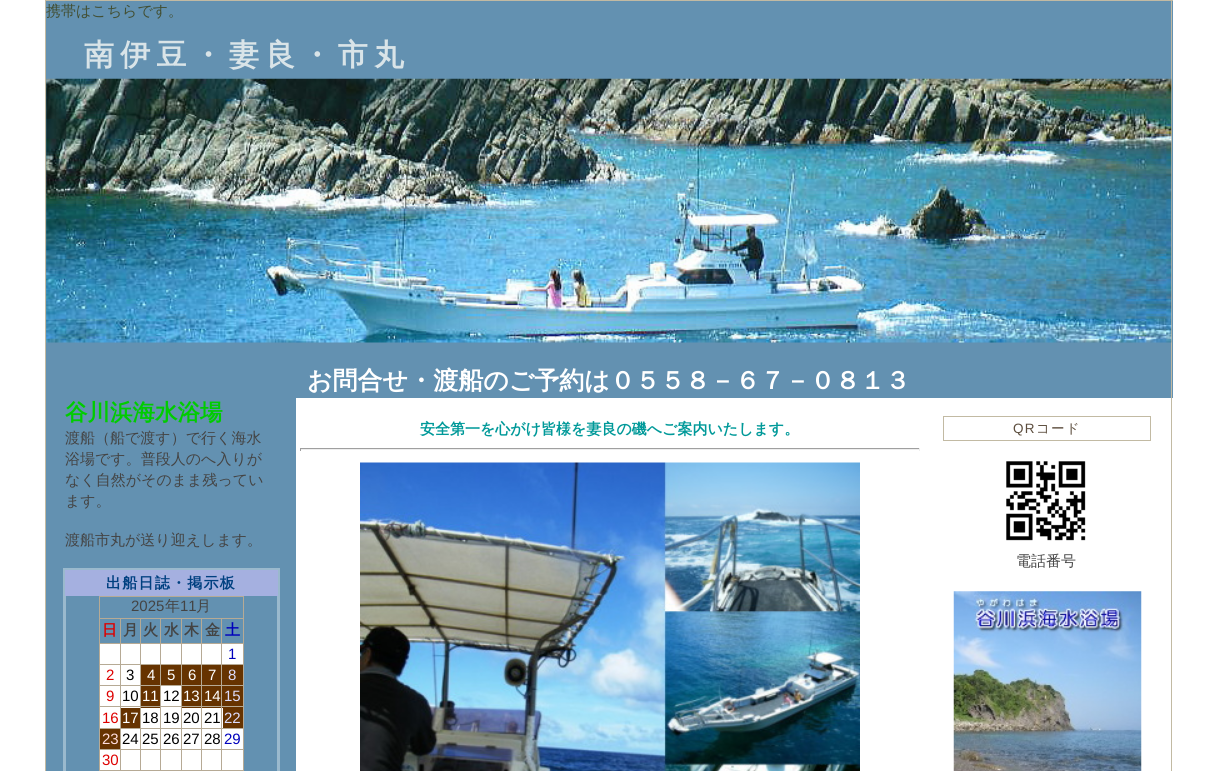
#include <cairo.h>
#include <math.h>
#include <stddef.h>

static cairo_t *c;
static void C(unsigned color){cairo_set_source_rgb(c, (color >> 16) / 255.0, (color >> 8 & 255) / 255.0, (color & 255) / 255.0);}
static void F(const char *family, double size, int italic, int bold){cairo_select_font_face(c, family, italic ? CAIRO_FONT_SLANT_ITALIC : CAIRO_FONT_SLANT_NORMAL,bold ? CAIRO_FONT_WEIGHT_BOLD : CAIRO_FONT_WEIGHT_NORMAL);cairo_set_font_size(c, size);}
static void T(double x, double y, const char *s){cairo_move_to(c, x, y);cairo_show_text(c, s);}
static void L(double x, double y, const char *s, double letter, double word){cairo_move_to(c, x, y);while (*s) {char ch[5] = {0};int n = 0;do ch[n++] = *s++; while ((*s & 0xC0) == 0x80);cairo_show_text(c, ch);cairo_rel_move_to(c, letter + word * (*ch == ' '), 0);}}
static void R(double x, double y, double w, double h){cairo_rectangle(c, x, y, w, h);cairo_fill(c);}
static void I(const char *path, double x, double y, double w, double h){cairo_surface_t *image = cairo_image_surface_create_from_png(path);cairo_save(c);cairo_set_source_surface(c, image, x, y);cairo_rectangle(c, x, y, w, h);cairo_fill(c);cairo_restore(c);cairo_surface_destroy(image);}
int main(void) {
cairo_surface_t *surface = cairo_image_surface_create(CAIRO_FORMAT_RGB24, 1217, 771);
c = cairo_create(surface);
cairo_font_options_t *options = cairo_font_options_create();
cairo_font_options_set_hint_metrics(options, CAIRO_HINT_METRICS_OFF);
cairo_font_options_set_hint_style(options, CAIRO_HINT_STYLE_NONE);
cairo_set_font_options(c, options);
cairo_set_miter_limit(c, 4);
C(0xffffff);
cairo_paint(c);
C(0x6391b1);
R(46,1,1127,397);
C(0xc2baa3);
R(45,0,1128,1);
R(1171,398,1,373);
R(1171,0,1,399);
R(45,398,1,373);
R(45,0,1,399);
F("WenQuanYi Zen Hei Medium",15,0,0);
C(0x424f33);
T(46,16,"携帯はこちらです。");
F("WenQuanYi Zen Hei",30,0,1);
C(0xd9e4e8);
L(84,65,"南伊豆・妻良・市丸",6.25,0);
I("1.png",46,78,1126,265);
F("WenQuanYi Zen Hei",25,0,1);
C(0xffffff);
T(307,389,"お問合せ・渡船のご予約は０５５８－６７－０８１３");
C(0x6391b1);
R(46,398,250,373);
F("WenQuanYi Zen Hei",22.5,0,1);
C(0x00cc00);
T(65,420,"谷川浜海水浴場");
F("WenQuanYi Zen Hei Medium",15,0,0);
C(0x444444);
T(65,443,"渡船（船で渡す）で行く海水");
T(65,464,"浴場です。普段人のへ入りが");
T(65,485,"なく自然がそのまま残ってい");
T(65,506,"ます。");
T(65,545,"渡船市丸が送り迎えします。");
cairo_rectangle(c,64.5,569.5,214,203);
C(0x9ab9cd);
cairo_set_line_width(c,3);
cairo_stroke(c);
C(0xa5b0e0);
R(65,570,213,26);
F("WenQuanYi Zen Hei",15,0,1);
C(0x004080);
L(106,588,"出船日誌・掲示板",1.25,0);
C(0xb6aa95);
R(99,596,145,1);
R(243,596,1,175);
R(99,596,1,175);
F("Liberation Sans",15,0,0);
C(0x444444);
T(131,611,"2025");
F("WenQuanYi Zen Hei Medium",15,0,0);
T(165,611,"年");
F("Liberation Sans",15,0,0);
T(180,611,"11");
F("WenQuanYi Zen Hei Medium",15,0,0);
T(196,611,"月");
C(0xb6aa95);
R(221,618,23,1);
R(221,643,23,1);
C(0xffffff);
R(182,644,61,20);
C(0xb6aa95);
R(221,664,23,1);
C(0x663300);
R(182,665,61,20);
C(0xb6aa95);
R(221,685,23,1);
C(0x663300);
R(182,686,61,22);
C(0xb6aa95);
R(221,706,23,1);
C(0xffffff);
R(182,708,41,20);
C(0xb6aa95);
R(221,728,23,1);
C(0xffffff);
R(182,729,61,20);
C(0xb6aa95);
R(221,749,23,1);
C(0xffffff);
R(182,750,61,20);
C(0xb6aa95);
R(221,770,23,1);
R(221,749,1,22);
R(201,749,22,1);
R(221,728,1,22);
R(201,728,22,1);
R(221,706,1,23);
R(201,706,22,1);
R(221,685,1,23);
R(201,685,22,1);
R(221,664,1,22);
R(201,664,22,1);
R(221,643,1,22);
R(201,643,22,1);
R(221,618,1,26);
R(201,618,22,1);
R(201,770,22,1);
R(201,749,1,22);
R(181,749,22,1);
R(201,728,1,22);
R(181,728,22,1);
R(201,706,1,23);
R(181,706,22,1);
R(201,685,1,23);
R(181,685,22,1);
R(201,664,1,22);
R(181,664,22,1);
R(201,643,1,22);
R(181,643,22,1);
R(201,618,1,26);
R(181,618,22,1);
C(0xffffff);
R(161,686,20,42);
C(0xb6aa95);
R(181,770,22,1);
R(181,749,1,22);
R(160,749,23,1);
R(181,728,1,22);
R(160,728,23,1);
R(181,706,1,23);
R(160,706,23,1);
R(181,685,1,23);
R(160,685,23,1);
R(181,664,1,22);
R(160,664,23,1);
R(181,643,1,22);
R(160,643,23,1);
R(181,618,1,26);
R(160,618,23,1);
C(0x663300);
R(141,686,19,22);
C(0xb6aa95);
R(160,770,23,1);
R(160,749,1,22);
R(140,749,21,1);
R(160,728,1,22);
R(140,728,21,1);
R(160,706,1,23);
R(140,706,21,1);
R(160,685,1,23);
R(140,685,21,1);
R(160,664,1,22);
R(140,664,21,1);
R(160,643,1,22);
R(140,643,21,1);
R(160,618,1,26);
R(140,618,21,1);
C(0xffffff);
R(121,686,19,22);
C(0xb6aa95);
R(140,770,21,1);
R(140,749,1,22);
R(120,749,21,1);
R(140,728,1,22);
R(120,728,21,1);
R(140,706,1,23);
R(120,706,21,1);
R(140,685,1,23);
R(120,685,21,1);
R(140,664,1,22);
R(120,664,21,1);
R(140,643,1,22);
R(120,643,21,1);
R(140,618,1,26);
R(120,618,21,1);
C(0xffffff);
R(100,686,20,42);
C(0xb6aa95);
R(120,770,21,1);
R(120,749,1,22);
R(99,749,22,1);
R(120,728,1,22);
R(99,728,22,1);
R(120,706,1,23);
R(99,706,22,1);
R(120,685,1,23);
R(99,685,22,1);
R(120,664,1,22);
R(99,664,22,1);
R(120,643,1,22);
R(99,643,22,1);
R(120,618,1,26);
R(99,618,22,1);
F("WenQuanYi Zen Hei",15,0,1);
C(0xdd0000);
T(102,635,"日");
C(0x444444);
T(123,635,"月");
T(143,635,"火");
T(164,635,"水");
T(184,635,"木");
T(205,635,"金");
C(0x0000bb);
T(225,635,"土");
C(0xffffff);
R(100,644,20,20);
R(121,644,19,20);
R(141,644,19,20);
R(161,644,20,20);
F("Liberation Sans",15,0,0);
C(0x0000bb);
T(228,659,"1");
C(0xffffff);
R(100,665,20,20);
C(0xdd0000);
T(106,680,"2");
C(0xffffff);
R(121,665,19,20);
C(0x000000);
T(126,680,"3");
C(0x663300);
R(141,665,19,20);
C(0xffffff);
T(147,680,"4");
C(0x663300);
R(161,665,20,20);
C(0xffffff);
T(167,680,"5");
T(188,680,"6");
T(208,680,"7");
C(0xddddff);
T(228,680,"8");
C(0xdd0000);
T(106,701,"9");
C(0x000000);
T(122,701,"10");
C(0xffffff);
T(142,701,"11");
C(0x000000);
T(163,701,"12");
C(0xffffff);
T(183,701,"13");
T(204,701,"14");
C(0xddddff);
T(224,701,"15");
C(0xdd0000);
T(102,723,"16");
C(0x663300);
R(121,708,19,20);
C(0xffffff);
T(122,723,"17");
R(141,708,19,20);
C(0x000000);
T(142,723,"18");
T(163,723,"19");
T(183,723,"20");
T(204,723,"21");
C(0x663300);
R(223,708,20,20);
C(0xddddff);
T(224,723,"22");
C(0x663300);
R(100,729,20,20);
C(0xffdddd);
T(102,744,"23");
C(0xffffff);
R(121,729,19,20);
C(0x000000);
T(122,744,"24");
C(0xffffff);
R(141,729,19,20);
C(0x000000);
T(142,744,"25");
C(0xffffff);
R(161,729,20,20);
C(0x000000);
T(163,744,"26");
T(183,744,"27");
T(204,744,"28");
C(0x0000bb);
T(224,744,"29");
C(0xffffff);
R(121,750,19,20);
R(141,750,19,20);
R(161,750,20,20);
R(100,750,20,20);
C(0xb6aa95);
R(99,770,22,1);
C(0xdd0000);
T(102,765,"30");
F("WenQuanYi Zen Hei",15,0,1);
C(0x009999);
T(420,434,"安全第一を心がけ皆様を妻良の磯へご案内いたします。");
C(0x9f9f9f);
R(300,448,620,1);
C(0xeeeeee);
R(919,448,1,3);
R(300,449,620,1);
C(0x9f9f9f);
R(300,448,1,3);
I("2.png",360,462,500,309);
cairo_rectangle(c,943.5,416.5,207,24);
C(0xc2baa3);
cairo_set_line_width(c,1);
cairo_stroke(c);
F("Liberation Sans",13.5,0,0);
C(0x5c4d3d);
L(1013,433,"QR",1.25,0);
F("WenQuanYi Zen Hei Medium",13.5,0,0);
L(1036,433,"コード",1.25,0);
I("3.png",1006,461,80,80);
F("WenQuanYi Zen Hei Medium",15,0,0);
C(0x444444);
T(1016,566,"電話番号");
I("4.png",953,591,189,180);
cairo_surface_write_to_png(surface, "o.png");
cairo_font_options_destroy(options);
cairo_destroy(c);
cairo_surface_destroy(surface);
return 0;
}
